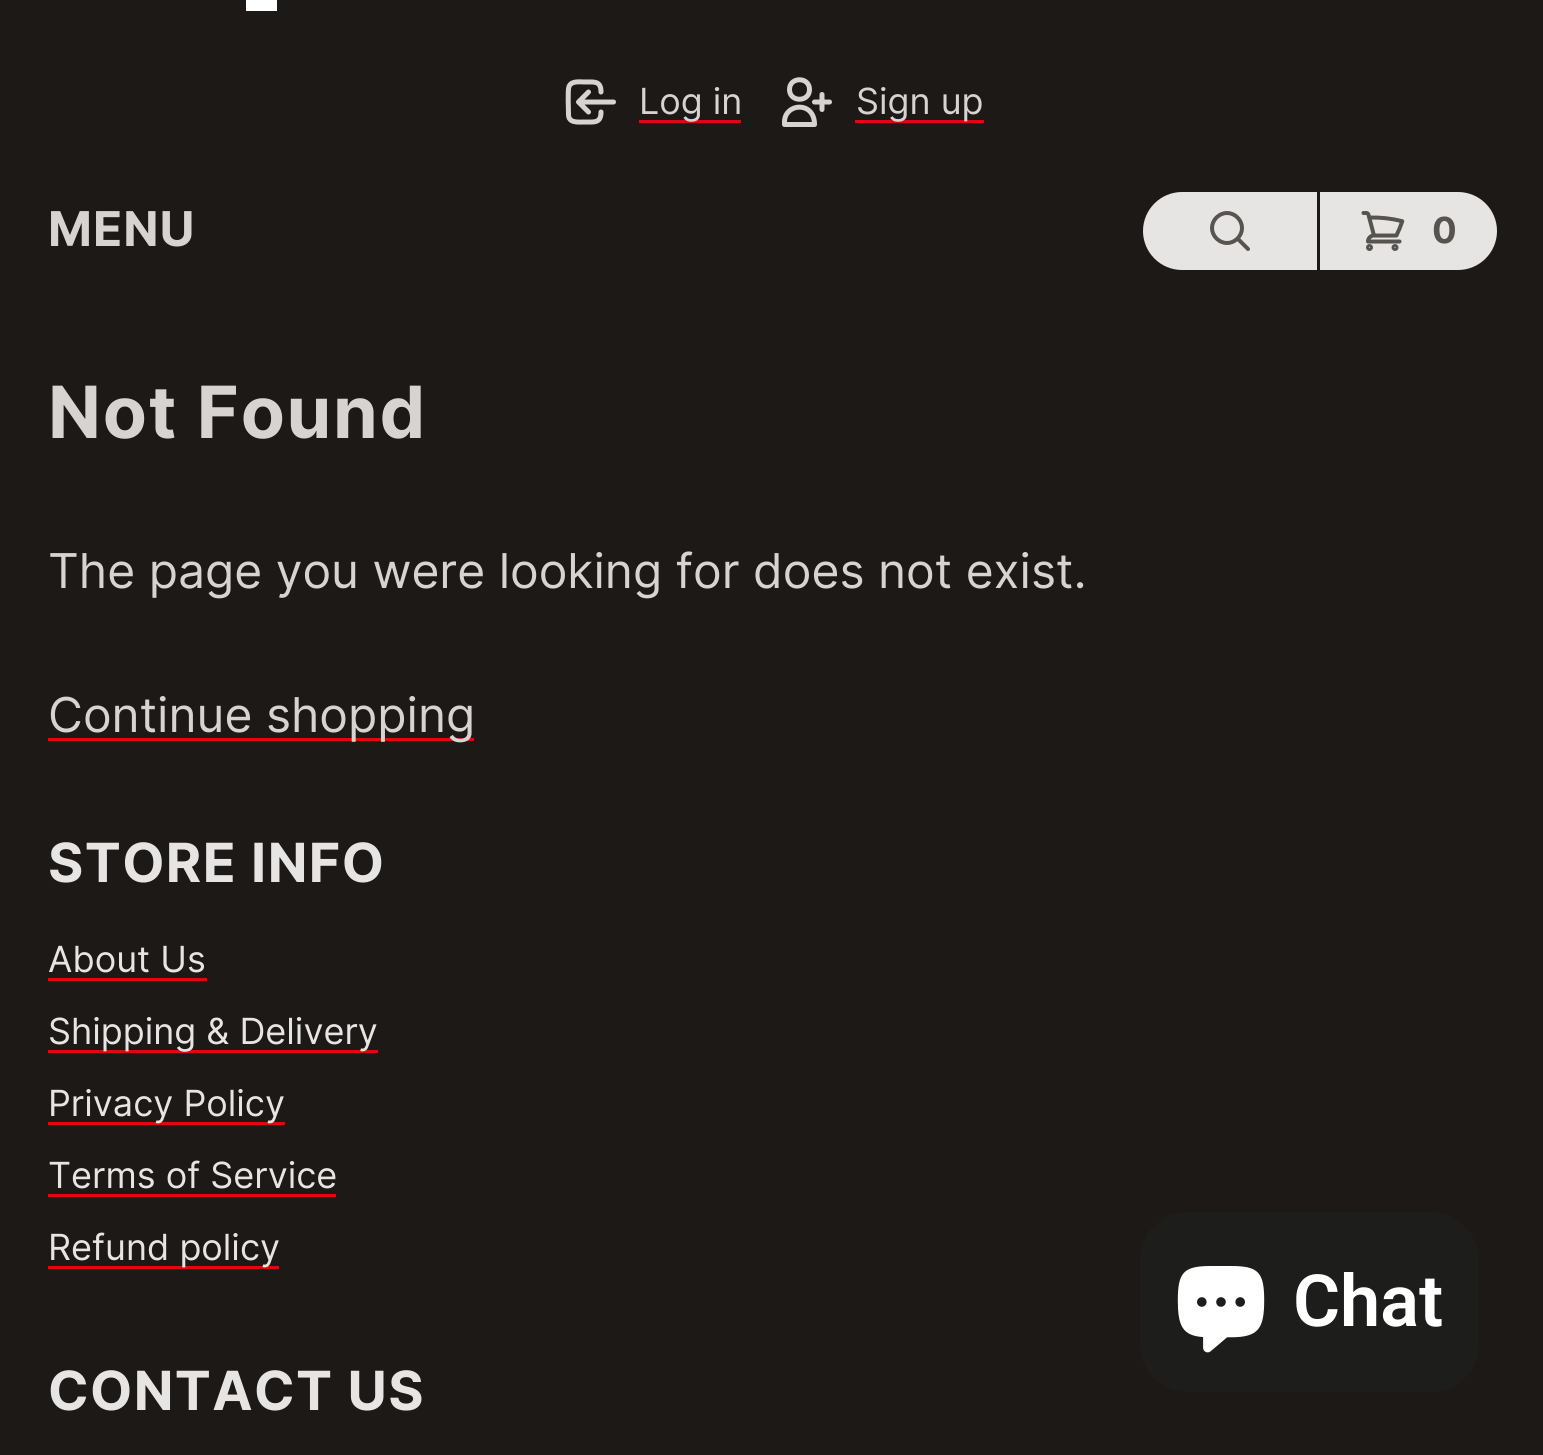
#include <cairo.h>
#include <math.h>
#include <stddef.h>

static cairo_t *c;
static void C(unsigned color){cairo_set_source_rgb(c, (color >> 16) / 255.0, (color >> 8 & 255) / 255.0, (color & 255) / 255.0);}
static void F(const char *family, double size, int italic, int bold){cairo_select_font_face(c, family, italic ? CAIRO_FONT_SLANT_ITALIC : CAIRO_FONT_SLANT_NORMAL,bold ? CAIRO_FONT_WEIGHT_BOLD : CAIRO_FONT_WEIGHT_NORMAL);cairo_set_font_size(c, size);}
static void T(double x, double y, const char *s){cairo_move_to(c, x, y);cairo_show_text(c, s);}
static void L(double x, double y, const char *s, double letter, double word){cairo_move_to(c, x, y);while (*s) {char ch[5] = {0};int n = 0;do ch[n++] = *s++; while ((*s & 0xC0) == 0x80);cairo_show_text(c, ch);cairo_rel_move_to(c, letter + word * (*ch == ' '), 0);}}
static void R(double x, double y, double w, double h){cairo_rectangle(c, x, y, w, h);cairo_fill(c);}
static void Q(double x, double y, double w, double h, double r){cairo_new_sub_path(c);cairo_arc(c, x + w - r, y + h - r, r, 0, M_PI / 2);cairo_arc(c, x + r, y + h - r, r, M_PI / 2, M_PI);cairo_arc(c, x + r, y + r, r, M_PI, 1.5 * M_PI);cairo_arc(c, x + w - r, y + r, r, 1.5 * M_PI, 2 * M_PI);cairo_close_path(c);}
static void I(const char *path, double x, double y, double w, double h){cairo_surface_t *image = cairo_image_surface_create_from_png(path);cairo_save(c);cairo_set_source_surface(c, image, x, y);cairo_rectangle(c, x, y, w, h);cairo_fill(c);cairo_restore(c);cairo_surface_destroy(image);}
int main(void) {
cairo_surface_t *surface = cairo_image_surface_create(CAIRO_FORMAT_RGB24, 1543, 1455);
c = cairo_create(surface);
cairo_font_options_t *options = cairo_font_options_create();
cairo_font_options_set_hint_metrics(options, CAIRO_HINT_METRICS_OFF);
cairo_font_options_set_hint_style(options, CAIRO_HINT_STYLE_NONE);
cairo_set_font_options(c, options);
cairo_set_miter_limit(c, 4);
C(0x1c1917);
cairo_paint(c);
C(0xffffff);
R(246,0,31,11);
cairo_new_path(c);
cairo_move_to(c,588.5,112);
cairo_line_to(c,578.5,102);
cairo_move_to(c,578.5,102);
cairo_line_to(c,588.5,92);
cairo_move_to(c,578.5,102);
cairo_line_to(c,613.5,102);
cairo_move_to(c,601,112);
cairo_curve_to(c,601,123.5,594,122,585,122);
cairo_curve_to(c,578.5,122,568.5,123.5,568.5,114.5);
cairo_curve_to(c,568.5,109.5,567.5,90,569,86.5);
cairo_curve_to(c,571.5,80.5,579.5,82,585,82);
cairo_curve_to(c,594,82,601,80.5,601,92);
C(0xd6d3d1);
cairo_set_line_width(c,5);
cairo_set_line_cap(c,CAIRO_LINE_CAP_ROUND);
cairo_set_line_join(c,CAIRO_LINE_JOIN_ROUND);
cairo_stroke(c);
C(0xe20514);
R(639,120,102,3);
F("Inter",36,0,0);
C(0xd6d3d1);
T(639,114,"Log in");
cairo_new_path(c);
cairo_move_to(c,822,94.5);
cairo_line_to(c,822,102);
cairo_move_to(c,822,102);
cairo_line_to(c,822,109.5);
cairo_move_to(c,822,102);
cairo_line_to(c,829.5,102);
cairo_move_to(c,822,102);
cairo_line_to(c,814.5,102);
cairo_move_to(c,809.5,89.5);
cairo_curve_to(c,809.5,102.5,789.5,102.5,789.5,89.5);
cairo_curve_to(c,789.5,76.5,809.5,76.5,809.5,89.5);
cairo_close_path(c);
cairo_move_to(c,784.5,122);
cairo_curve_to(c,784.5,103,814.5,100.5,814.5,124.5);
cairo_line_to(c,784.5,124.5);
cairo_close_path(c);
cairo_stroke(c);
C(0xe20514);
R(855,120,129,3);
C(0xd6d3d1);
T(856,114,"Sign up");
F("Inter",48,0,1);
L(48,246,"MENU",1,0);
C(0xe7e5e4);
cairo_new_path(c);
cairo_move_to(c,1182,192);
cairo_line_to(c,1317,192);
cairo_line_to(c,1317,270);
cairo_line_to(c,1182,270);
cairo_curve_to(c,1160.5,270,1143,252.5,1143,231);
cairo_curve_to(c,1143,209.5,1160.5,192,1182,192);
cairo_close_path(c);
cairo_fill(c);
cairo_new_path(c);
cairo_move_to(c,1248,249);
cairo_line_to(c,1237.5,238.5);
cairo_move_to(c,1237.5,238.5);
cairo_curve_to(c,1243.5,232.5,1243.5,223.5,1237.5,217.5);
cairo_curve_to(c,1231.5,211.5,1222.5,211.5,1216.5,217.5);
cairo_curve_to(c,1210.5,223.5,1210.5,232.5,1216.5,238.5);
cairo_curve_to(c,1222.5,244.5,1231.5,244.5,1237.5,238.5);
cairo_close_path(c);
C(0x57534e);
cairo_set_line_width(c,4);
cairo_stroke(c);
C(0xe7e5e4);
cairo_new_path(c);
cairo_move_to(c,1320,192);
cairo_line_to(c,1458,192);
cairo_curve_to(c,1479.5,192,1497,209.5,1497,231);
cairo_curve_to(c,1497,252.5,1479.5,270,1458,270);
cairo_line_to(c,1320,270);
cairo_close_path(c);
cairo_fill(c);
I("1.png",1361,211,44,40);
F("Inter",36,0,1);
C(0x57534e);
L(1432,243,"0",1,0);
F("Inter",72,0,1);
C(0xd6d3d1);
L(48,438,"Not Found",1.75,0);
F("Inter",48,0,0);
T(48,588,"The page you were looking for does not exist.");
C(0xe20514);
R(48,738,426,3);
C(0xd6d3d1);
T(48,732,"Continue shopping");
F("Inter",54,0,1);
C(0xe7e5e4);
L(48,882,"STORE INFO",1.4,0);
F("Inter",36,0,0);
T(48,972,"About Us");
C(0xe20514);
R(48,978,159,3);
R(48,1050,330,3);
C(0xe7e5e4);
T(48,1044,"Shipping & Delivery");
C(0xe20514);
R(48,1122,237,3);
C(0xe7e5e4);
T(48,1116,"Privacy Policy");
T(48,1188,"Terms of Service");
C(0xe20514);
R(48,1194,288,3);
R(48,1266,231,3);
C(0xe7e5e4);
T(48,1260,"Refund policy");
F("Inter",54,0,1);
L(48,1410,"CONTACT US",1.4,0);
C(0x1d1d1b);
Q(1140,1212,339,180,48);
cairo_fill(c);
I("2.png",1177,1266,88,87);
F("Roboto SemiBold",72,0,0);
C(0xffffff);
T(1293,1326,"Chat");
cairo_surface_write_to_png(surface, "o.png");
cairo_font_options_destroy(options);
cairo_destroy(c);
cairo_surface_destroy(surface);
return 0;
}
